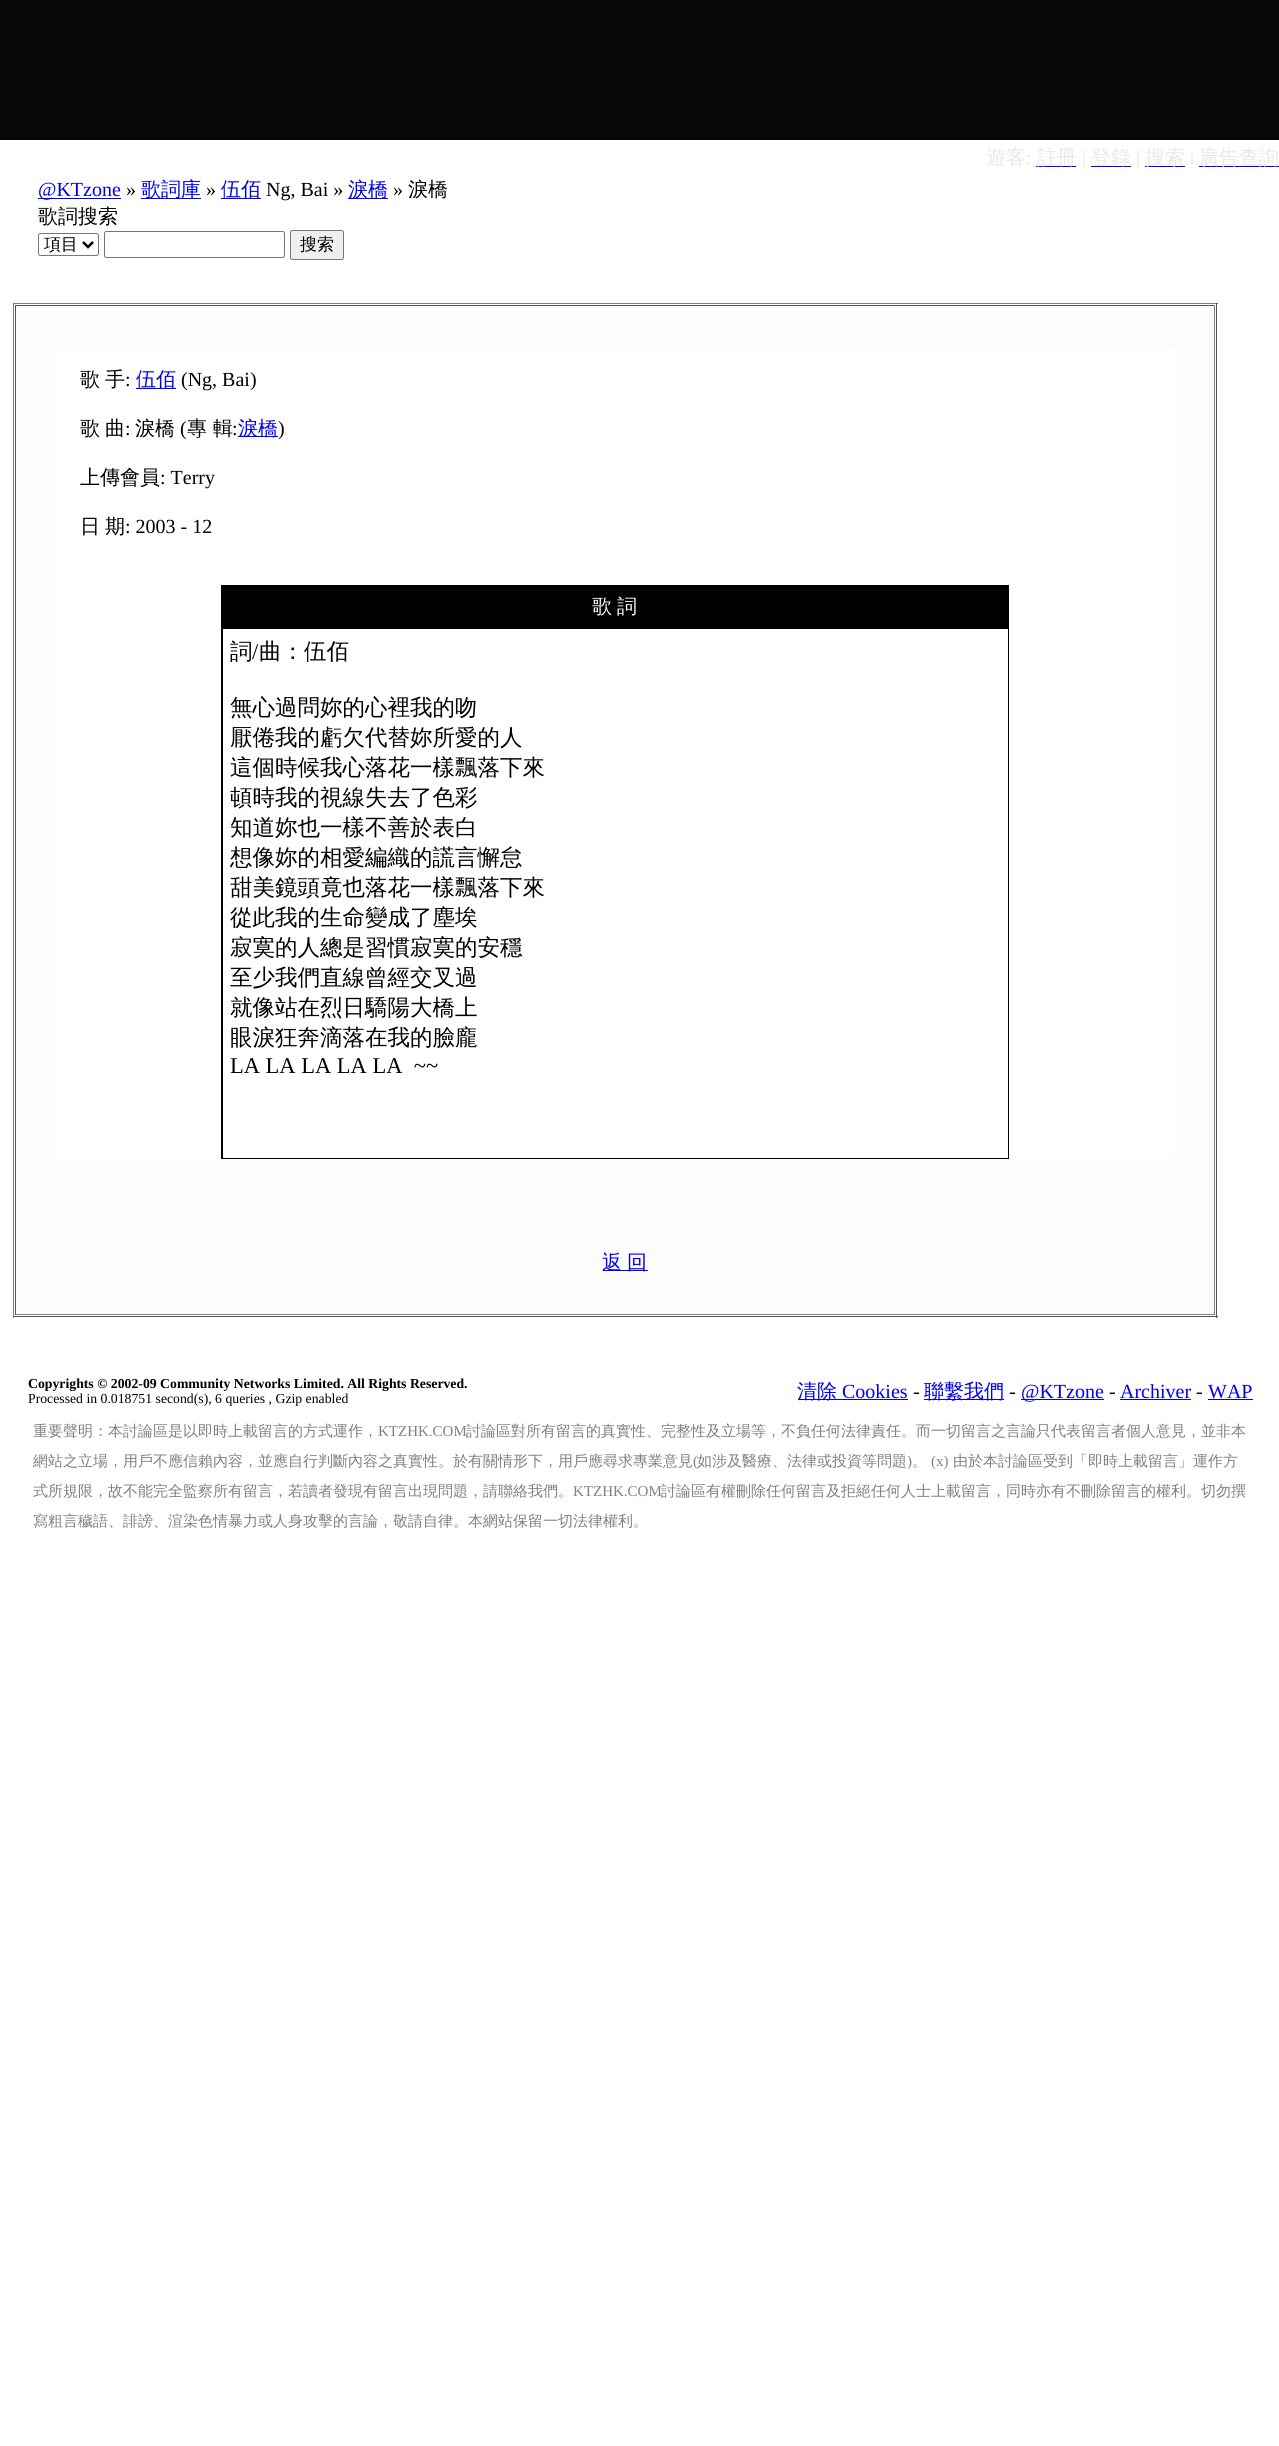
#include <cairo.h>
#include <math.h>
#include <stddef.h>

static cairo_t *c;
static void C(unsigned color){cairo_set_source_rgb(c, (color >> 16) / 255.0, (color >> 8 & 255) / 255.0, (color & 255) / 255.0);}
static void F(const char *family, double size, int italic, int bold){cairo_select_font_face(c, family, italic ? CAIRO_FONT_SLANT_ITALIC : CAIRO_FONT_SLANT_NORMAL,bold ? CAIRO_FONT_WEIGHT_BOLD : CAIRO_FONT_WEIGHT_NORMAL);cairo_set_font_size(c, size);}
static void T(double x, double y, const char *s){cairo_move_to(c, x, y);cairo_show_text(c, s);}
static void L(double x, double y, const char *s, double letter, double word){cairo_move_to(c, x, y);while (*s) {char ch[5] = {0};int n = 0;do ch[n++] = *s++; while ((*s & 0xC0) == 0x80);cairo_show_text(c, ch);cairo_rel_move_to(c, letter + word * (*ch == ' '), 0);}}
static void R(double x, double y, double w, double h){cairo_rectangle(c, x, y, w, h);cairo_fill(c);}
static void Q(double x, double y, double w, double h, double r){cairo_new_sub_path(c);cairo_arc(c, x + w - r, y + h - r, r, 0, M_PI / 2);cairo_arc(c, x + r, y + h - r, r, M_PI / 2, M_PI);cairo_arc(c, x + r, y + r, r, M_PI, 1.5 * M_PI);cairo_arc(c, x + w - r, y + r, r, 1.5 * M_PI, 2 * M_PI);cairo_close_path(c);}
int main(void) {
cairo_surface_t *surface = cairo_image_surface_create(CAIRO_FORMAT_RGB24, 1279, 2446);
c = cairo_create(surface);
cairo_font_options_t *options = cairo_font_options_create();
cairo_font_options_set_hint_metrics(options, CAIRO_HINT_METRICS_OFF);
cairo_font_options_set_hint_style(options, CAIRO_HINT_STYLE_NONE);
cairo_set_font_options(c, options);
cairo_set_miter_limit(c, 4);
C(0xffffff);
cairo_paint(c);
C(0x080808);
R(0,0,1279,140);
F("WenQuanYi Zen Hei Medium",20,0,0);
C(0xe8e8e8);
T(986,164,"遊客");
F("Liberation Serif",20,0,0);
T(1026,164,":");
C(0x0000ee);
R(1036,166,40,1);
F("WenQuanYi Zen Hei Medium",20,0,0);
C(0xe8e8e8);
T(1037,164,"註冊");
F("Liberation Serif",20,0,0);
T(1082,164,"|");
C(0x0000ee);
R(1091,166,40,1);
F("WenQuanYi Zen Hei Medium",20,0,0);
C(0xe8e8e8);
T(1091,164,"登錄");
F("Liberation Serif",20,0,0);
T(1136,164,"|");
C(0x0000ee);
R(1145,166,40,1);
F("WenQuanYi Zen Hei Medium",20,0,0);
C(0xe8e8e8);
T(1145,164,"搜索");
F("Liberation Serif",20,0,0);
T(1190,164,"|");
C(0x0000ee);
R(1199,166,80,1);
F("WenQuanYi Zen Hei Medium",20,0,0);
C(0xe8e8e8);
T(1199,164,"廣告查詢");
C(0x0000ee);
R(38,198,83,1);
F("Liberation Serif",20,0,0);
T(38,196,"@KTzone");
C(0x000000);
T(126,196,"»");
C(0x0000ee);
R(141,198,60,1);
F("WenQuanYi Zen Hei Medium",20,0,0);
T(141,196,"歌詞庫");
F("Liberation Serif",20,0,0);
C(0x000000);
T(206,196,"»");
C(0x0000ee);
R(221,198,40,1);
F("WenQuanYi Zen Hei Medium",20,0,0);
T(221,196,"伍佰");
F("Liberation Serif",20,0,0);
C(0x000000);
T(266,196,"Ng, Bai »");
C(0x0000ee);
R(348,198,40,1);
F("WenQuanYi Zen Hei Medium",20,0,0);
T(348,196,"淚橋");
F("Liberation Serif",20,0,0);
C(0x000000);
T(393,196,"»");
F("WenQuanYi Zen Hei Medium",20,0,0);
T(408,196,"淚橋");
T(38,223,"歌詞搜索");
Q(38.5,233.5,60,22,2);
C(0x767676);
cairo_set_line_width(c,1);
cairo_stroke(c);
cairo_new_path(c);
cairo_move_to(c,83,242);
cairo_line_to(c,88,247);
cairo_line_to(c,93,242);
C(0x000000);
cairo_set_line_width(c,2.5);
cairo_stroke(c);
F("WenQuanYi Zen Hei Medium",17,0,0);
T(44,250,"項目");
Q(104.5,231.5,180,26,2);
C(0x767676);
cairo_set_line_width(c,1);
cairo_stroke(c);
C(0xefefef);
Q(290.5,230.5,53,29,2);
cairo_fill_preserve(c);
C(0x767676);
cairo_stroke(c);
C(0x000000);
T(300,250,"搜索");
C(0x808080);
R(13,303,1205,1);
C(0x555555);
R(1216,303,1,1015);
R(13,1316,1205,1);
C(0x808080);
R(13,303,1,1015);
C(0xfcfcfc);
R(16,306,1198,1008);
C(0x555555);
R(15,305,1200,1);
C(0x808080);
R(1214,305,1,1010);
R(15,1314,1200,1);
C(0x555555);
R(15,305,1,1010);
C(0xf1fbfc);
R(55,344,1120,1);
C(0xffffff);
R(55,345,1120,814);
F("WenQuanYi Zen Hei Medium",20,0,0);
C(0x000000);
L(80,386,"歌 手",0,-1);
F("Liberation Serif",20,0,0);
T(125,386,":");
C(0x0000ee);
R(136,388,40,1);
F("WenQuanYi Zen Hei Medium",20,0,0);
T(136,386,"伍佰");
F("Liberation Serif",20,0,0);
C(0x000000);
T(181,386,"(Ng, Bai)");
F("WenQuanYi Zen Hei Medium",20,0,0);
L(80,435,"歌 曲",0,-1);
F("Liberation Serif",20,0,0);
T(125,435,":");
F("WenQuanYi Zen Hei Medium",20,0,0);
T(135,435,"淚橋");
F("Liberation Serif",20,0,0);
T(180,435,"(");
F("WenQuanYi Zen Hei Medium",20,0,0);
T(187,435,"專 輯");
F("Liberation Serif",20,0,0);
T(232,435,":");
C(0x0000ee);
R(238,436,40,1);
F("WenQuanYi Zen Hei Medium",20,0,0);
T(238,435,"淚橋");
F("Liberation Serif",20,0,0);
C(0x000000);
T(278,435,")");
F("WenQuanYi Zen Hei Medium",20,0,0);
T(80,484,"上傳會員");
F("Liberation Serif",20,0,0);
T(160,484,": Terry");
F("WenQuanYi Zen Hei Medium",20,0,0);
L(80,533,"日 期",0,-1);
F("Liberation Serif",20,0,0);
T(125,533,": 2003 - 12");
R(221,585,788,574);
F("WenQuanYi Zen Hei Medium",20,0,0);
C(0xffffff);
L(592,613,"歌 詞",0,-1);
R(223,629,785,529);
F("WenQuanYi Zen Hei Medium",22.5,0,0);
C(0x000000);
T(230,659,"詞");
F("Liberation Serif",22.5,0,0);
T(252,659,"/");
F("WenQuanYi Zen Hei Medium",22.5,0,0);
T(259,659,"曲：伍佰");
T(230,715,"無心過問妳的心裡我的吻");
T(230,745,"厭倦我的虧欠代替妳所愛的人");
T(230,775,"這個時候我心落花一樣飄落下來");
T(230,805,"頓時我的視線失去了色彩");
T(230,835,"知道妳也一樣不善於表白");
T(230,865,"想像妳的相愛編織的謊言懈怠");
T(230,895,"甜美鏡頭竟也落花一樣飄落下來");
T(230,925,"從此我的生命變成了塵埃");
T(230,955,"寂寞的人總是習慣寂寞的安穩");
T(230,985,"至少我們直線曾經交叉過");
T(230,1015,"就像站在烈日驕陽大橋上");
T(230,1045,"眼淚狂奔滴落在我的臉龐");
F("Liberation Serif",22.5,0,0);
T(230,1073,"LA LA LA LA LA  ~~");
C(0xf1fbfc);
R(55,1181,1120,1);
C(0x0000ee);
R(603,1270,45,1);
F("WenQuanYi Zen Hei Medium",20,0,0);
L(602,1269,"返 回",0,-1);
F("Liberation Serif",13.75,0,1);
C(0x000000);
T(28,1388,"Copyrights © 2002-09 Community Networks Limited. All Rights Reserved.");
F("Liberation Serif",13.75,0,0);
T(28,1403,"Processed in 0.018751 second(s), 6 queries , Gzip enabled");
C(0x0000ee);
R(798,1399,110,1);
F("WenQuanYi Zen Hei Medium",20,0,0);
T(797,1398,"清除");
F("Liberation Serif",20,0,0);
T(842,1398,"Cookies");
C(0x000000);
T(913,1398,"-");
C(0x0000ee);
R(924,1399,80,1);
F("WenQuanYi Zen Hei Medium",20,0,0);
T(924,1398,"聯繫我們");
F("Liberation Serif",20,0,0);
C(0x000000);
T(1009,1398,"-");
C(0x0000ee);
R(1021,1399,83,1);
T(1021,1398,"@KTzone");
C(0x000000);
T(1109,1398,"-");
C(0x0000ee);
T(1120,1398,"Archiver");
R(1120,1399,71,1);
C(0x000000);
T(1196,1398,"-");
C(0x0000ee);
T(1208,1398,"WAP");
R(1208,1399,45,1);
F("WenQuanYi Zen Hei Medium",15,0,0);
C(0x808080);
T(33,1436,"重要聲明：本討論區是以即時上載留言的方式運作，");
F("Liberation Serif",15,0,0);
T(378,1436,"KTZHK.COM");
F("WenQuanYi Zen Hei Medium",15,0,0);
T(466,1436,"討論區對所有留言的真實性、完整性及立場等，不負任何法律責任。而一切留言之言論只代表留言者個人意見，並非本");
T(33,1466,"網站之立場，用戶不應信賴內容，並應自行判斷內容之真實性。於有關情形下，用戶應尋求專業意見");
F("Liberation Serif",15,0,0);
T(693,1466,"(");
F("WenQuanYi Zen Hei Medium",15,0,0);
T(697,1466,"如涉及醫療、法律或投資等問題");
F("Liberation Serif",15,0,0);
T(907,1466,")");
F("WenQuanYi Zen Hei Medium",15,0,0);
T(912,1466,"。");
F("Liberation Serif",15,0,0);
T(931,1466,"(x)");
F("WenQuanYi Zen Hei Medium",15,0,0);
T(953,1466,"由於本討論區受到「即時上載留言」運作方");
T(33,1496,"式所規限，故不能完全監察所有留言，若讀者發現有留言出現問題，請聯絡我們。");
F("Liberation Serif",15,0,0);
T(573,1496,"KTZHK.COM");
F("WenQuanYi Zen Hei Medium",15,0,0);
T(661,1496,"討論區有權刪除任何留言及拒絕任何人士上載留言，同時亦有不刪除留言的權利。切勿撰");
T(33,1526,"寫粗言穢語、誹謗、渲染色情暴力或人身攻擊的言論，敬請自律。本網站保留一切法律權利。");
cairo_surface_write_to_png(surface, "o.png");
cairo_font_options_destroy(options);
cairo_destroy(c);
cairo_surface_destroy(surface);
return 0;
}
